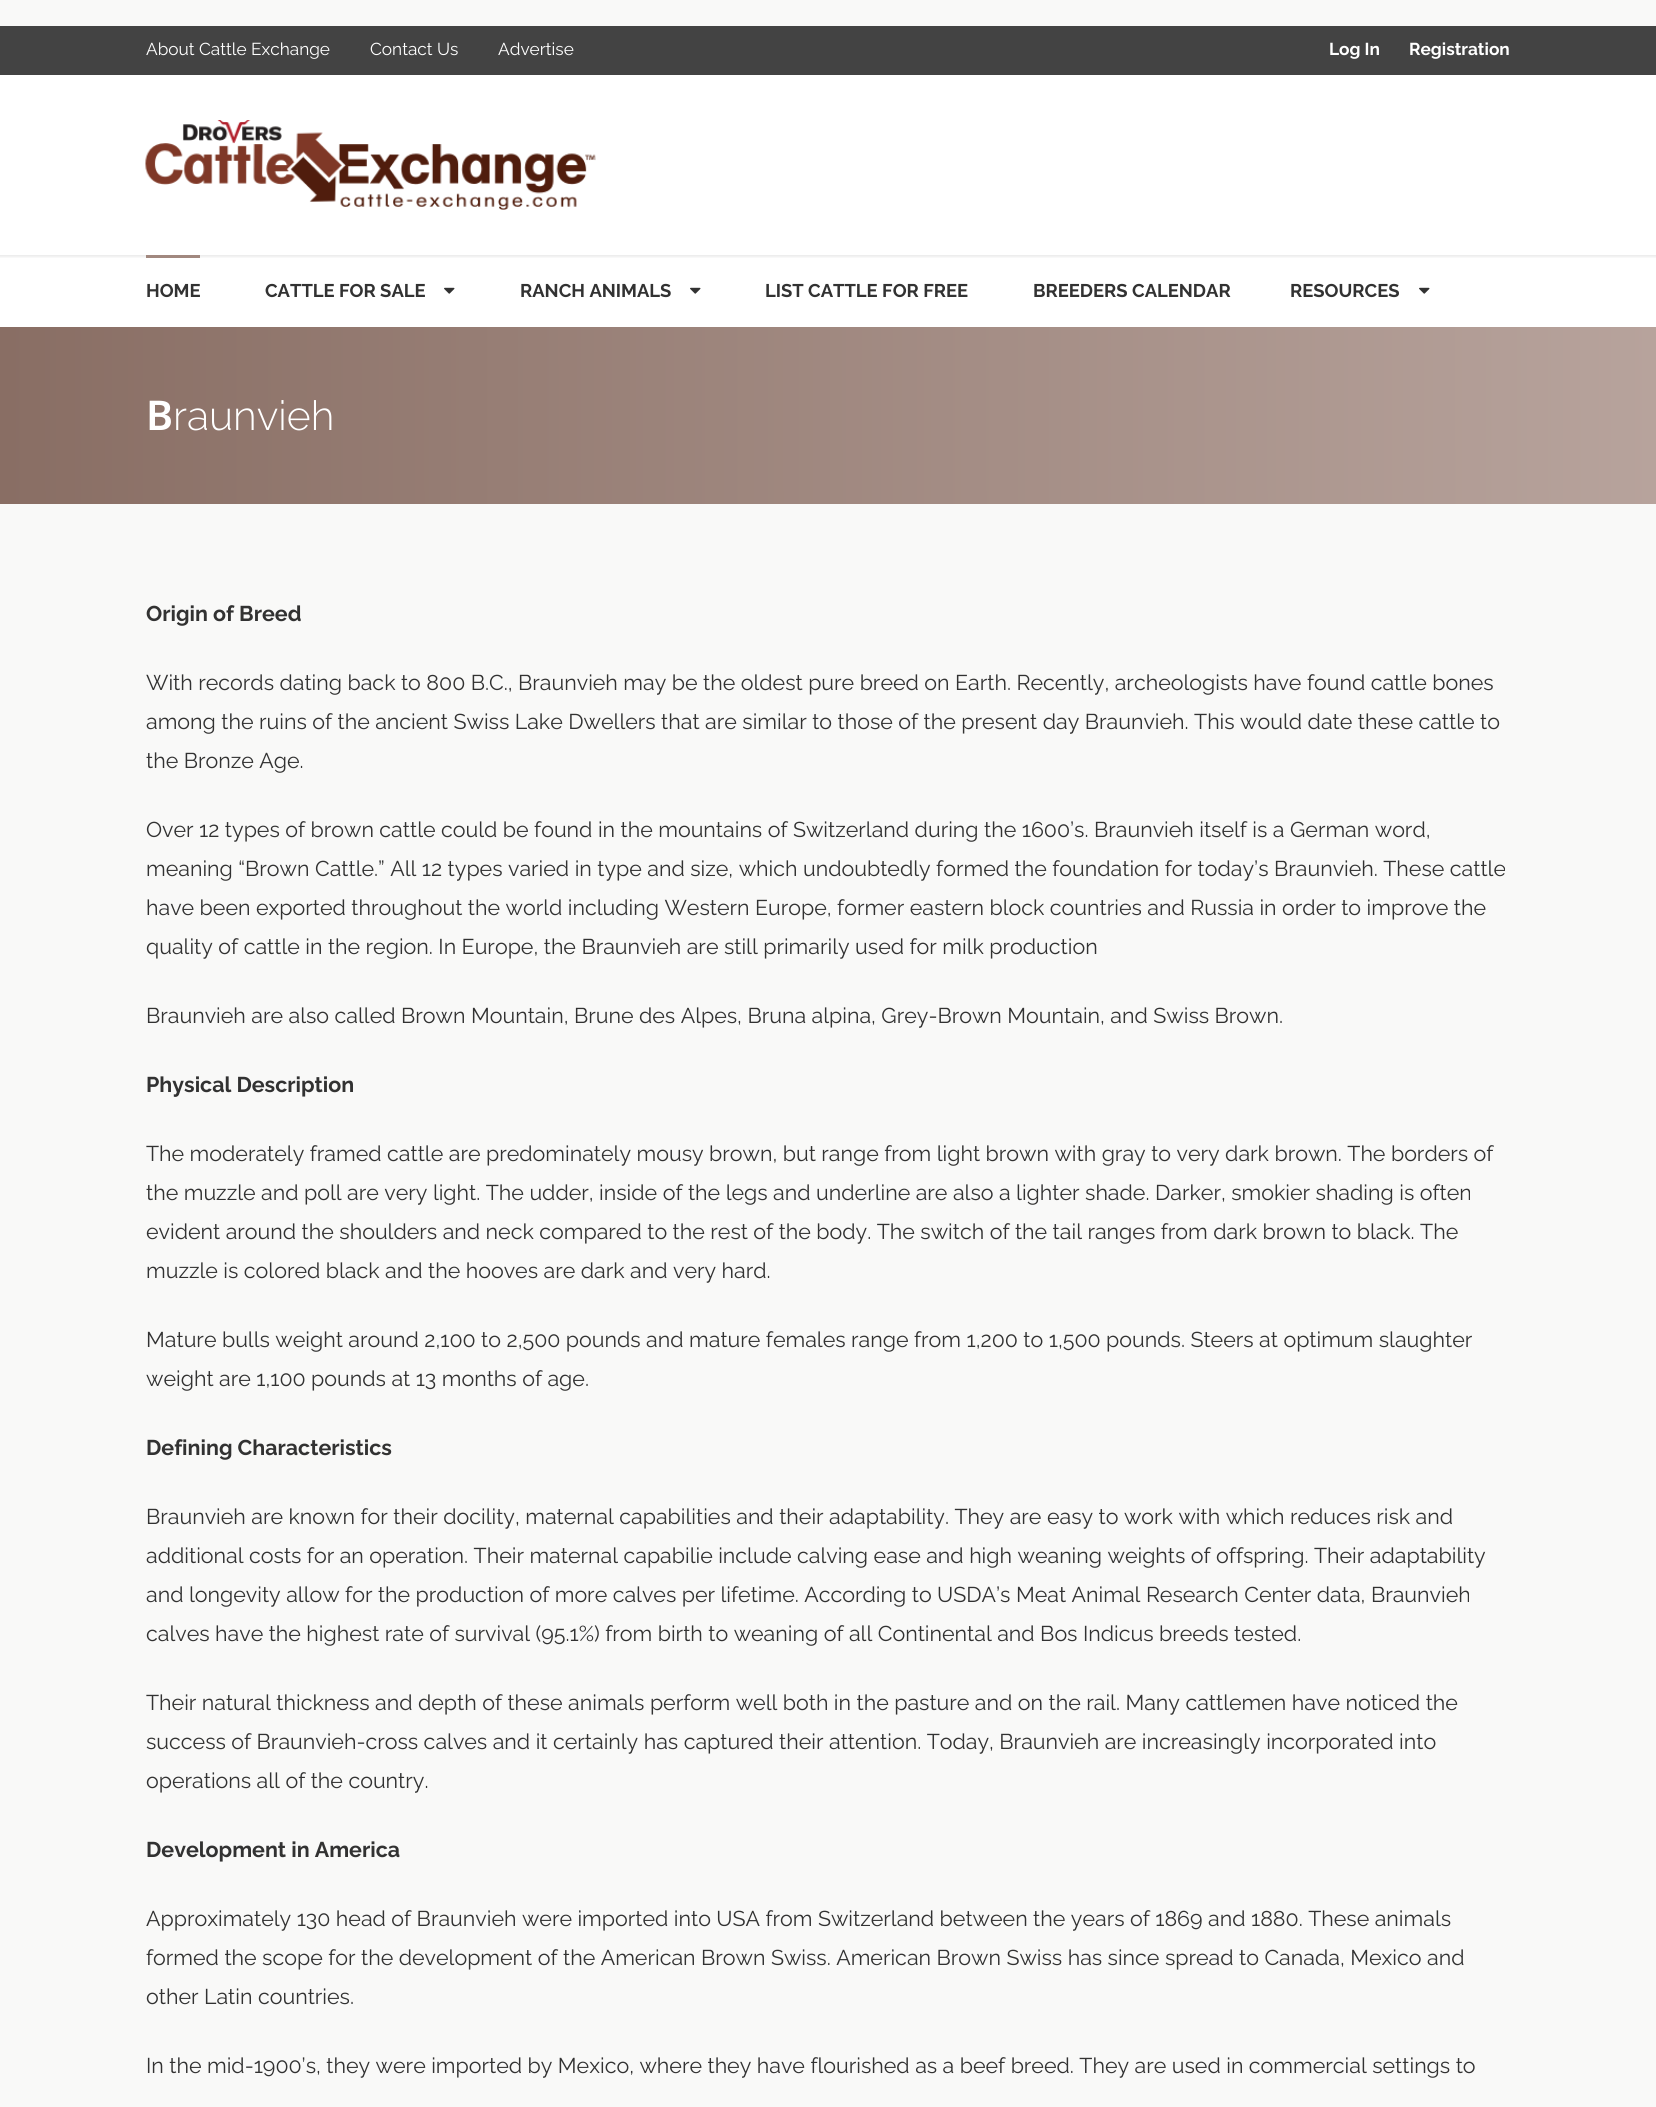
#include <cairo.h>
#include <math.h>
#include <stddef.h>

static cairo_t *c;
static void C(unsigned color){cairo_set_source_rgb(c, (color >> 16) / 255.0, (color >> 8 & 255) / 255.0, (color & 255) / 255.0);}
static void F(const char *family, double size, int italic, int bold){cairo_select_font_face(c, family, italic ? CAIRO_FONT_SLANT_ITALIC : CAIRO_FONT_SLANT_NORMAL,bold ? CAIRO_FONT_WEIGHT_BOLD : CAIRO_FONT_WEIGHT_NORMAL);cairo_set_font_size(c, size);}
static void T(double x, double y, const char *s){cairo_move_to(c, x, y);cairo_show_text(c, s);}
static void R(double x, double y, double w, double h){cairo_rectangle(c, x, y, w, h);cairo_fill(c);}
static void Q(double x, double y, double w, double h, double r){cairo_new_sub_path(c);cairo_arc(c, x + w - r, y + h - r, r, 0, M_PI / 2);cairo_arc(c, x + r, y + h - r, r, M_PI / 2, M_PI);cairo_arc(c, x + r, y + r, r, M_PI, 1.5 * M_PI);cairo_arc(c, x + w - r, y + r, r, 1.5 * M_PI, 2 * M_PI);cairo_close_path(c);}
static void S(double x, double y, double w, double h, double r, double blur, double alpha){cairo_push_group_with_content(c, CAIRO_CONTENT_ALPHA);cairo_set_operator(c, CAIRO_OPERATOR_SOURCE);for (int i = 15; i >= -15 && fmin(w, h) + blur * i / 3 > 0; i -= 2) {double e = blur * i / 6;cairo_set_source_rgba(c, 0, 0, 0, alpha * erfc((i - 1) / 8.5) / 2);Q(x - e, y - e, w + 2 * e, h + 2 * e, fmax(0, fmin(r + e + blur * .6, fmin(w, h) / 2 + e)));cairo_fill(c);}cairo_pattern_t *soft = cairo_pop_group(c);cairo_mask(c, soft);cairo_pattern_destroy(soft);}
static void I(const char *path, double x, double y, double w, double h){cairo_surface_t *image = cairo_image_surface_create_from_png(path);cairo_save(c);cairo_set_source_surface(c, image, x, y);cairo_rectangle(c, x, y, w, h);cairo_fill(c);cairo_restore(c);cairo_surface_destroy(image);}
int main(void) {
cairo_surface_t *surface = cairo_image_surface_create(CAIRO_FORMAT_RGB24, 1656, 2107);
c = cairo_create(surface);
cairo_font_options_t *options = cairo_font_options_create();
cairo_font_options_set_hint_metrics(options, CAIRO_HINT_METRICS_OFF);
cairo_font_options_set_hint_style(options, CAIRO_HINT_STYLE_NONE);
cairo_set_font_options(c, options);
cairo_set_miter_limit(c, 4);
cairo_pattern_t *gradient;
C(0xf9f9f8);
cairo_paint(c);
C(0xffffff);
R(0,75,1656,252);
C(0x434343);
R(0,26,1656,49);
F("Raleway",17.25,0,0);
C(0xffffff);
T(146,55,"About Cattle Exchange");
T(370,55,"Contact Us");
T(498,55,"Advertise");
F("Raleway",17.25,0,1);
T(1329,55,"Log In");
T(1409,55,"Registration");
cairo_save(c);
cairo_rectangle(c,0,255,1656,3);
cairo_clip(c);
C(0x000000);
S(-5,77,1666,180,0,1.5,.08);
cairo_restore(c);
I("1.png",145,120,451,90);
C(0xa1887f);
R(146,255,54,3);
F("Raleway",18.4,0,1);
C(0x323232);
T(146,297,"HOME");
T(265,297,"CATTLE FOR SALE");
I("2.png",444,287,11,7);
T(520,297,"RANCH ANIMALS");
I("2.png",690,287,11,7);
T(765,297,"LIST CATTLE FOR FREE");
T(1033,297,"BREEDERS CALENDAR");
T(1290,297,"RESOURCES");
I("2.png",1419,287,11,7);
gradient = cairo_pattern_create_linear(0,416,1656,415);
cairo_pattern_add_color_stop_rgba(gradient,0,0.537,0.431,0.392,1);
cairo_pattern_add_color_stop_rgba(gradient,1,0.718,0.639,0.612,1);
cairo_set_source(c,gradient);
cairo_pattern_destroy(gradient);
R(0,327,1656,177);
F("Noto Sans SemiBold",41,0,0);
C(0xffffff);
T(146,430,"B");
F("Raleway Light",41,0,0);
T(173,430,"raunvieh");
F("Raleway",21.42,0,1);
C(0x323232);
T(146,621,"Origin of Breed");
F("Raleway",21.42,0,0);
T(146,690,"With records dating back to 800 B.C., Braunvieh may be the oldest pure breed on Earth. Recently, archeologists have found cattle bones");
T(146,729,"among the ruins of the ancient Swiss Lake Dwellers that are similar to those of the present day Braunvieh. This would date these cattle to");
T(146,768,"the Bronze Age.");
T(146,837,"Over 12 types of brown cattle could be found in the mountains of Switzerland during the 1600’s. Braunvieh itself is a German word,");
T(146,876,"meaning “Brown Cattle.” All 12 types varied in type and size, which undoubtedly formed the foundation for today’s Braunvieh. These cattle");
T(146,915,"have been exported throughout the world including Western Europe, former eastern block countries and Russia in order to improve the");
T(146,954,"quality of cattle in the region. In Europe, the Braunvieh are still primarily used for milk production");
T(146,1023,"Braunvieh are also called Brown Mountain, Brune des Alpes, Bruna alpina, Grey-Brown Mountain, and Swiss Brown.");
F("Raleway",21.42,0,1);
T(146,1092,"Physical Description");
F("Raleway",21.42,0,0);
T(146,1161,"The moderately framed cattle are predominately mousy brown, but range from light brown with gray to very dark brown. The borders of");
T(146,1200,"the muzzle and poll are very light. The udder, inside of the legs and underline are also a lighter shade. Darker, smokier shading is often");
T(146,1239,"evident around the shoulders and neck compared to the rest of the body. The switch of the tail ranges from dark brown to black. The");
T(146,1278,"muzzle is colored black and the hooves are dark and very hard.");
T(146,1347,"Mature bulls weight around 2,100 to 2,500 pounds and mature females range from 1,200 to 1,500 pounds. Steers at optimum slaughter");
T(146,1386,"weight are 1,100 pounds at 13 months of age.");
F("Raleway",21.42,0,1);
T(146,1455,"Defining Characteristics");
F("Raleway",21.42,0,0);
T(146,1524,"Braunvieh are known for their docility, maternal capabilities and their adaptability. They are easy to work with which reduces risk and");
T(146,1563,"additional costs for an operation. Their maternal capabilie include calving ease and high weaning weights of offspring. Their adaptability");
T(146,1602,"and longevity allow for the production of more calves per lifetime. According to USDA’s Meat Animal Research Center data, Braunvieh");
T(146,1641,"calves have the highest rate of survival (95.1%) from birth to weaning of all Continental and Bos Indicus breeds tested.");
T(146,1710,"Their natural thickness and depth of these animals perform well both in the pasture and on the rail. Many cattlemen have noticed the");
T(146,1749,"success of Braunvieh-cross calves and it certainly has captured their attention. Today, Braunvieh are increasingly incorporated into");
T(146,1788,"operations all of the country.");
F("Raleway",21.42,0,1);
T(146,1857,"Development in America");
F("Raleway",21.42,0,0);
T(146,1926,"Approximately 130 head of Braunvieh were imported into USA from Switzerland between the years of 1869 and 1880. These animals");
T(146,1965,"formed the scope for the development of the American Brown Swiss. American Brown Swiss has since spread to Canada, Mexico and");
T(146,2004,"other Latin countries.");
T(146,2073,"In the mid-1900’s, they were imported by Mexico, where they have flourished as a beef breed. They are used in commercial settings to");
cairo_surface_write_to_png(surface, "o.png");
cairo_font_options_destroy(options);
cairo_destroy(c);
cairo_surface_destroy(surface);
return 0;
}
